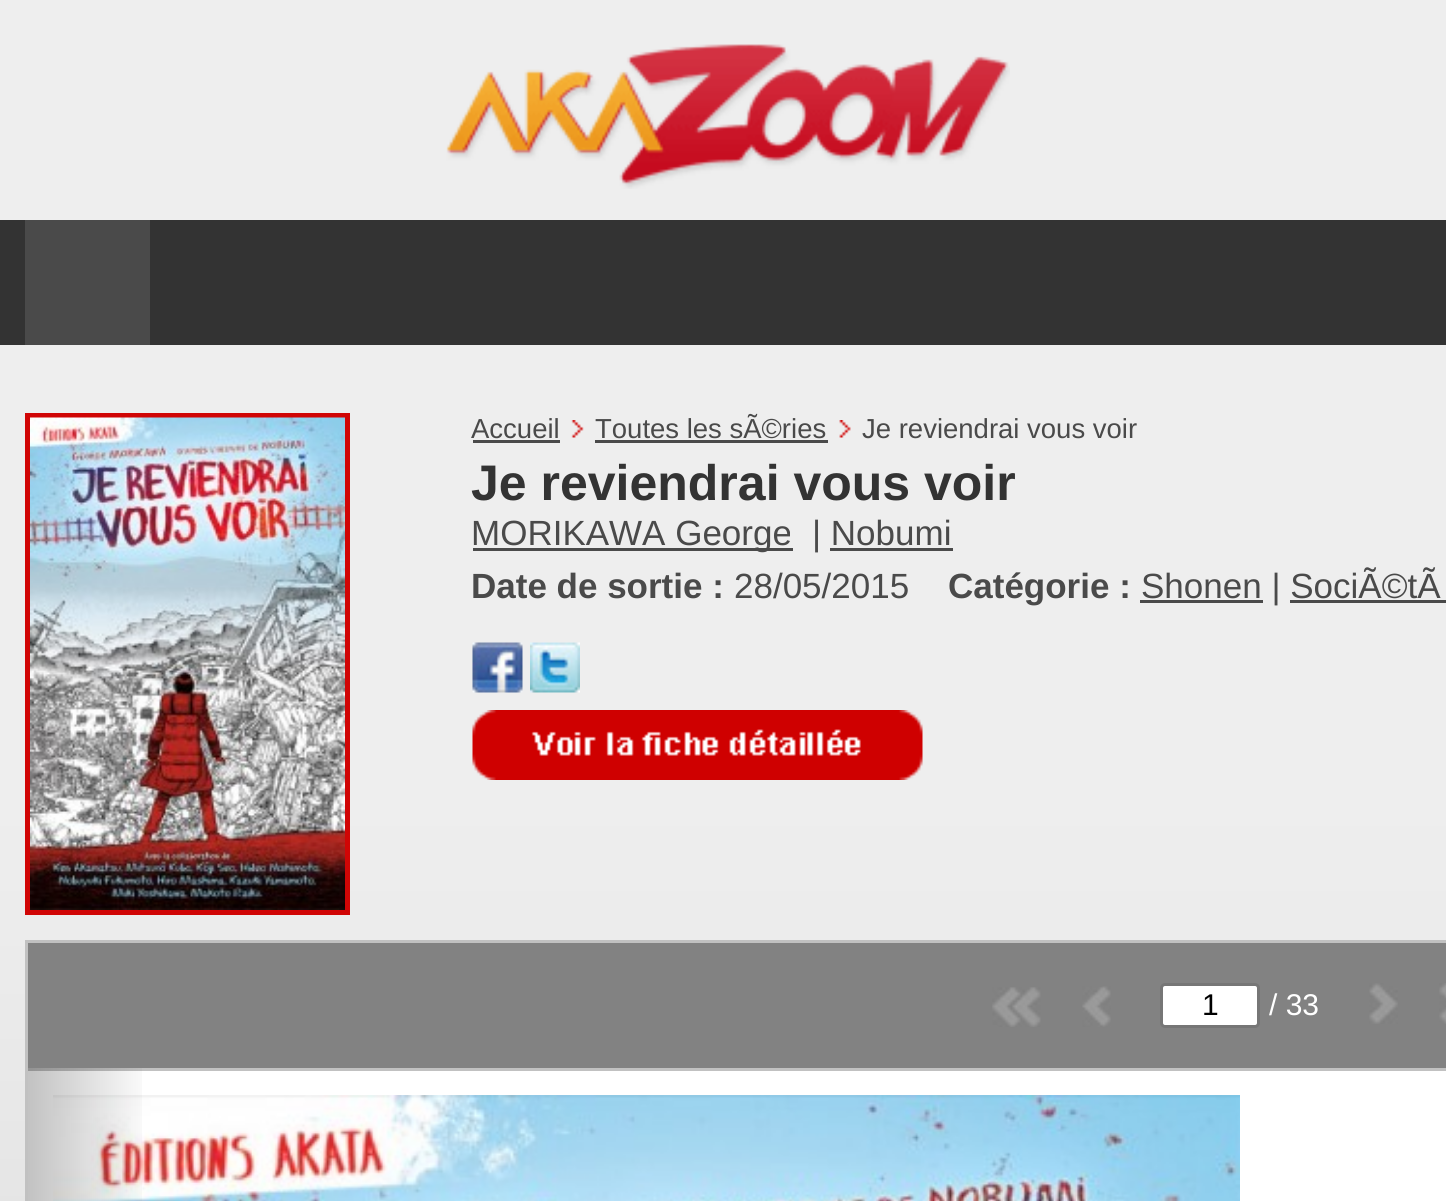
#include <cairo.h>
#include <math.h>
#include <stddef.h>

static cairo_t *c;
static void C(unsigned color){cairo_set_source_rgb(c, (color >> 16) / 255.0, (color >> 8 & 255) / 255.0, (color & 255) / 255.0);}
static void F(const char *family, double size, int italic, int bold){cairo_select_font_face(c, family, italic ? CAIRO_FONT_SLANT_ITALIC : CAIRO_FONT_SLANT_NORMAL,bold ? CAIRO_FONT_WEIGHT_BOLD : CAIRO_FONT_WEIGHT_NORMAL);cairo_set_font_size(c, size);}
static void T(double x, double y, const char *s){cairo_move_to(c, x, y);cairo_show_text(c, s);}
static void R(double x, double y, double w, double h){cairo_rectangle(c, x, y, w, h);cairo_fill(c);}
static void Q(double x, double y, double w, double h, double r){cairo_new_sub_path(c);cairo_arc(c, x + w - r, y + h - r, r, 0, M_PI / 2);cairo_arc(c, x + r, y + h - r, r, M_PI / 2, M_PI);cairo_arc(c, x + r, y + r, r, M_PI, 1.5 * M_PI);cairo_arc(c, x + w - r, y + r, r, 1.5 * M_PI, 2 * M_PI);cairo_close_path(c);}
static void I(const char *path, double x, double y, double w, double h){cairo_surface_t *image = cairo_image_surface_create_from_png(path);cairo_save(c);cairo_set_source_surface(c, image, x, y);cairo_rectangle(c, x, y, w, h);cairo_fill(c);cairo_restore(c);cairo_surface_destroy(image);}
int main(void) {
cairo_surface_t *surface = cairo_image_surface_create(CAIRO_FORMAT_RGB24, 1446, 1201);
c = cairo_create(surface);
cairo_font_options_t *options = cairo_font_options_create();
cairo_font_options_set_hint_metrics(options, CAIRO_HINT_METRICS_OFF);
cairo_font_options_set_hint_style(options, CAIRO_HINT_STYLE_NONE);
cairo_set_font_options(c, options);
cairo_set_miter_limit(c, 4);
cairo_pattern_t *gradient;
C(0xffffff);
cairo_paint(c);
I("1.png",0,0,1446,1201);
I("2.png",446,44,564,145);
C(0x333333);
R(0,220,1446,125);
C(0x4a4a4a);
R(25,220,125,125);
cairo_rectangle(c,27.5,415.5,320,497);
C(0xd00505);
cairo_set_line_width(c,5);
cairo_stroke(c);
I("3.png",30,417,315,493);
F("Liberation Sans",27.5,0,0);
C(0x4a4a4a);
T(471,438,"Accueil");
R(473,440,87,3);
I("4.png",571,420,13,18);
T(595,438,"Toutes les sÃ©ries");
R(595,440,233,3);
I("5.png",839,420,12,18);
T(862,438,"Je reviendrai vous voir");
F("Liberation Sans",50,0,1);
C(0x333333);
T(471,500,"Je reviendrai vous voir");
C(0x4a4a4a);
R(473,548,320,3);
F("Liberation Sans",35,0,0);
T(471,545,"MORIKAWA George");
T(812,545,"| Nobumi");
R(830,548,123,3);
F("Liberation Sans",35,0,1);
T(471,598,"Date de sortie :");
F("Liberation Sans",35,0,0);
T(734,598,"28/05/2015");
F("Liberation Sans",35,0,1);
T(948,598,"Catégorie :");
R(1140,600,123,3);
F("Liberation Sans",35,0,0);
T(1141,598,"Shonen | SociÃ©tÃ");
R(1290,600,156,3);
I("6.png",472,642,51,51);
I("7.png",530,642,50,51);
I("8.png",472,710,451,70);
C(0xffffff);
R(28,1071,1418,130);
cairo_rectangle(c,26.5,941.5,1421,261);
C(0xc1c1c1);
cairo_set_line_width(c,3);
cairo_stroke(c);
C(0x828282);
R(28,943,1418,125);
C(0xc1c1c1);
R(28,1068,1418,3);
I("9.png",992,987,49,40);
I("10.png",1082,986,29,41);
C(0xffffff);
Q(1161.5,984.5,97,42,3.5);
cairo_fill_preserve(c);
C(0x767676);
cairo_stroke(c);
F("Liberation Sans",30,0,0);
C(0x000000);
T(1202,1015,"1");
C(0xffffff);
T(1269,1015,"/ 33");
I("11.png",1369,983,29,41);
I("12.png",1439,983,7,41);
I("13.png",53,1095,1187,106);
gradient = cairo_pattern_create_linear(27,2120,153,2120);
cairo_pattern_add_color_stop_rgba(gradient,0,0,0,0,.24);
cairo_pattern_add_color_stop_rgba(gradient,1,0,0,0,0);
cairo_set_source(c,gradient);
cairo_pattern_destroy(gradient);
R(28,1068,114,133);
cairo_surface_write_to_png(surface, "o.png");
cairo_font_options_destroy(options);
cairo_destroy(c);
cairo_surface_destroy(surface);
return 0;
}
